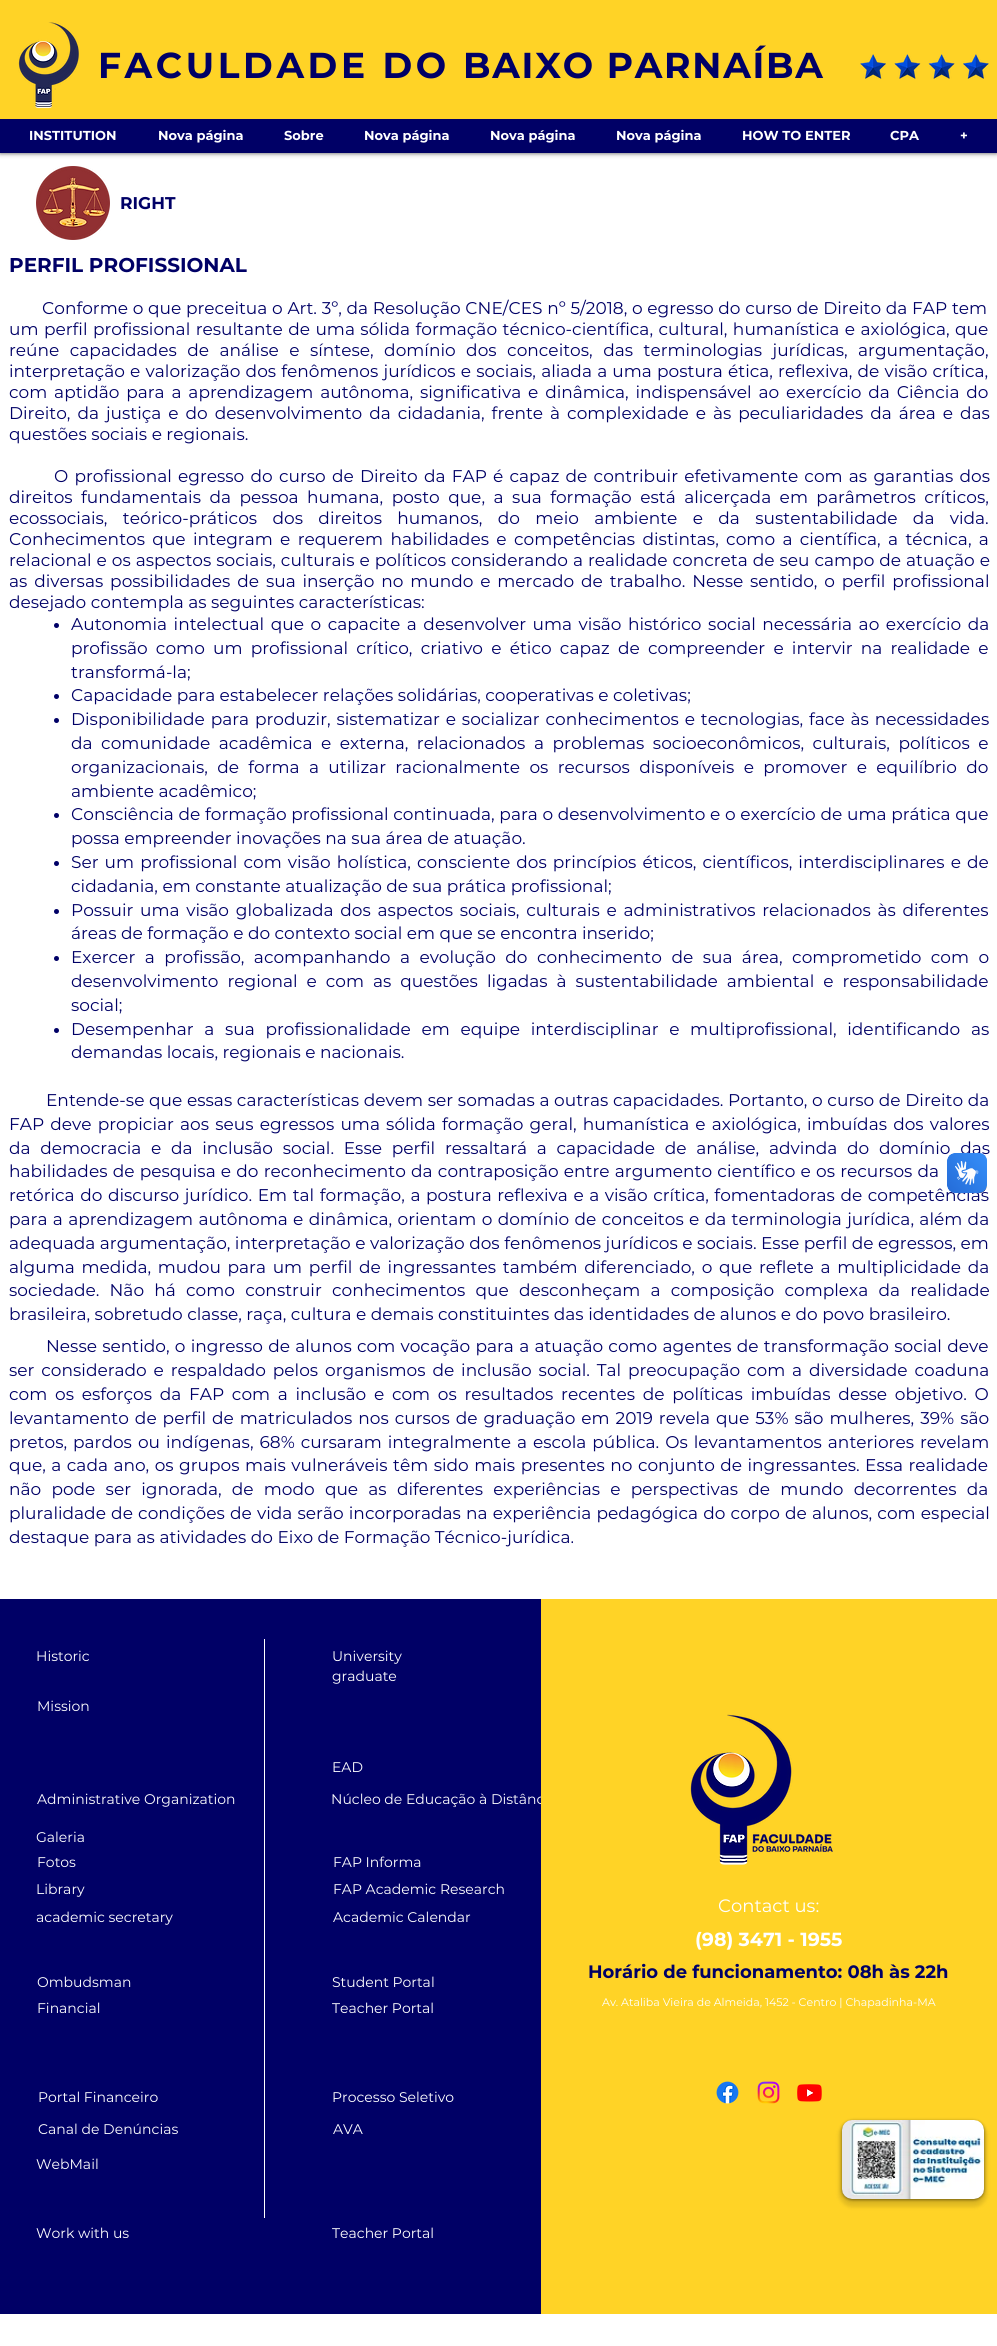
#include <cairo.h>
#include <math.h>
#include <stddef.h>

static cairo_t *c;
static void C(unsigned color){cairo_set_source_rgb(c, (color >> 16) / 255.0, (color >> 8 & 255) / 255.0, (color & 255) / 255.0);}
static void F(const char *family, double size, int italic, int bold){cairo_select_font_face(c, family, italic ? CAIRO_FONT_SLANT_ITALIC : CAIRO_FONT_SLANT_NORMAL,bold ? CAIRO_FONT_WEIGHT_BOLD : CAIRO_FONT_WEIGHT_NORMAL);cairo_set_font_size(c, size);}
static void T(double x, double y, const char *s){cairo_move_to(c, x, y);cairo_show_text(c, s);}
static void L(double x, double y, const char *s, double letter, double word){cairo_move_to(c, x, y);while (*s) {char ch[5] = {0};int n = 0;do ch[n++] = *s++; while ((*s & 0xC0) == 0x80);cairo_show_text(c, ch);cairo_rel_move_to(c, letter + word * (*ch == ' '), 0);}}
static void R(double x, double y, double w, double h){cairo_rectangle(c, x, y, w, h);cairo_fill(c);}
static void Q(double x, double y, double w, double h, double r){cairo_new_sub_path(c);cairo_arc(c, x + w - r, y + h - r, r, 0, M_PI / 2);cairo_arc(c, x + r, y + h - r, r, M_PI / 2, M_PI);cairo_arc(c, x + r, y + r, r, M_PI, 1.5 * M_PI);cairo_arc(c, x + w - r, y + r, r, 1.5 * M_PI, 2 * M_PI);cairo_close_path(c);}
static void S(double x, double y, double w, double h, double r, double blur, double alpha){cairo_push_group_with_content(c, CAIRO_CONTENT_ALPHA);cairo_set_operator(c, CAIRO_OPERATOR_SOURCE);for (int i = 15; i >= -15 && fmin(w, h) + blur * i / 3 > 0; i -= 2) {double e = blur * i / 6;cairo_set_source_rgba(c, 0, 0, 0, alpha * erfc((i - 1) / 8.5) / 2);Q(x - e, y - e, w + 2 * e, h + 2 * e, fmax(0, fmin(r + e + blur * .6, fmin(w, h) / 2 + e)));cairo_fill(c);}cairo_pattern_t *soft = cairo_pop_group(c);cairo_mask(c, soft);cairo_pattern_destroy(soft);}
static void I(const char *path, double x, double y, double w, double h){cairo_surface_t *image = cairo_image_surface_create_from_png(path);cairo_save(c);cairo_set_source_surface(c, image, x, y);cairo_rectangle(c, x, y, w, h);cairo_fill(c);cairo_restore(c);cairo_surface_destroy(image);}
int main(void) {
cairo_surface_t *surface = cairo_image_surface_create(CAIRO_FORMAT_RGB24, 997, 2346);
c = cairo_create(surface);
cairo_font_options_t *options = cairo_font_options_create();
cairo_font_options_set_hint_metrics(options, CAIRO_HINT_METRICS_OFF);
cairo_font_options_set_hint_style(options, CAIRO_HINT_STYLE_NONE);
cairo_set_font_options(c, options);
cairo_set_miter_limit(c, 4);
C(0xffffff);
cairo_paint(c);
C(0x000000);
S(0,0,997,153,0,2.5,.7);
C(0xffd326);
R(0,0,997,119);
I("1.png",18,22,61,87);
F("Montserrat",36,0,1);
C(0x000066);
L(98,78,"FACULDADE DO",3.6,0);
L(463,78,"BAIXO PARNAÍBA",1.75,0);
I("2.png",860,54,129,25);
R(0,119,997,34);
F("Montserrat",13,0,1);
C(0xffffff);
T(29,140,"INSTITUTION");
T(158,140,"Nova página");
T(284,140,"Sobre");
T(364,140,"Nova página");
T(490,140,"Nova página");
T(616,140,"Nova página");
T(742,140,"HOW TO ENTER");
T(890,140,"CPA");
T(960,140,"+");
I("3.png",36,166,74,74);
F("Montserrat",17,0,1);
C(0x000066);
T(120,209,"RIGHT");
F("Montserrat",20,0,1);
T(9,272,"PERFIL PROFISSIONAL");
F("Montserrat",17,0,0);
L(42,314,"Conforme o que preceitua o Art. 3º, da Resolução CNE/CES nº 5/2018, o egresso do curso de Direito da FAP tem",0,.25);
L(9,335,"um perfil profissional resultante de uma sólida formação técnico-científica, cultural, humanística e axiológica, que",0,1);
L(9,356,"reúne capacidades de análise e síntese, domínio dos conceitos, das terminologias jurídicas, argumentação,",0,6);
L(9,377,"interpretação e valorização dos fenômenos jurídicos e sociais, aliada a uma postura ética, reflexiva, de visão crítica,",0,.75);
L(9,398,"com aptidão para a aprendizagem autônoma, significativa e dinâmica, indispensável ao exercício da Ciência do",0,2.4);
L(9,419,"Direito, da justiça e do desenvolvimento da cidadania, frente à complexidade e às peculiaridades da área e das",0,2.5);
T(9,440,"questões sociais e regionais.");
L(54,482,"O profissional egresso do curso de Direito da FAP é capaz de contribuir efetivamente com as garantias dos",0,1.75);
L(9,503,"direitos fundamentais da pessoa humana, posto que, a sua formação está alicerçada em parâmetros críticos,",0,4);
L(9,524,"ecossociais, teórico-práticos dos direitos humanos, do meio ambiente e da sustentabilidade da vida.",0,10.9);
L(9,545,"Conhecimentos que integram e requerem habilidades e competências distintas, como a científica, a técnica, a",0,2.9);
L(9,566,"relacional e os aspectos sociais, culturais e políticos considerando a realidade concreta de seu campo de atuação e",0,.5);
L(9,587,"as diversas possibilidades de sua inserção no mundo e mercado de trabalho. Nesse sentido, o perfil profissional",0,2.4);
T(9,608,"desejado contempla as seguintes características:");
cairo_new_path(c);
cairo_arc(c,56.5,625.5,2.5,0,2 * M_PI);
cairo_fill(c);
L(71,630,"Autonomia intelectual que o capacite a desenvolver uma visão histórico social necessária ao exercício da",0,2.1);
L(71,654,"profissão como um profissional crítico, criativo e ético capaz de compreender e intervir na realidade e",0,3.75);
T(71,678,"transformá-la;");
cairo_new_path(c);
cairo_arc(c,56.5,696.5,2.5,0,2 * M_PI);
cairo_fill(c);
T(71,701,"Capacidade para estabelecer relações solidárias, cooperativas e coletivas;");
cairo_new_path(c);
cairo_arc(c,56.5,720.5,2.5,0,2 * M_PI);
cairo_fill(c);
L(71,725,"Disponibilidade para produzir, sistematizar e socializar conhecimentos e tecnologias, face às necessidades",0,1.4);
L(71,749,"da comunidade acadêmica e externa, relacionados a problemas socioeconômicos, culturais, políticos e",0,4.1);
L(71,773,"organizacionais, de forma a utilizar racionalmente os recursos disponíveis e promover e equilíbrio do",0,4.9);
T(71,797,"ambiente acadêmico;");
cairo_new_path(c);
cairo_arc(c,56.5,815.5,2.5,0,2 * M_PI);
cairo_fill(c);
L(71,820,"Consciência de formação profissional continuada, para o desenvolvimento e o exercício de uma prática que",0,.25);
T(71,844,"possa empreender inovações na sua área de atuação.");
cairo_new_path(c);
cairo_arc(c,56.5,863.5,2.5,0,2 * M_PI);
cairo_fill(c);
L(71,868,"Ser um profissional com visão holística, consciente dos princípios éticos, científicos, interdisciplinares e de",0,1.6);
T(71,892,"cidadania, em constante atualização de sua prática profissional;");
cairo_new_path(c);
cairo_arc(c,56.5,911.5,2.5,0,2 * M_PI);
cairo_fill(c);
L(71,916,"Possuir uma visão globalizada dos aspectos sociais, culturais e administrativos relacionados às diferentes",0,2.25);
T(71,939,"áreas de formação e do contexto social em que se encontra inserido;");
cairo_new_path(c);
cairo_arc(c,56.5,958.5,2.5,0,2 * M_PI);
cairo_fill(c);
L(71,963,"Exercer a profissão, acompanhando a evolução do conhecimento de sua área, comprometido com o",0,5);
L(71,987,"desenvolvimento regional e com as questões ligadas à sustentabilidade ambiental e responsabilidade",0,4.5);
T(71,1011,"social;");
cairo_new_path(c);
cairo_arc(c,56.5,1030.5,2.5,0,2 * M_PI);
cairo_fill(c);
L(71,1035,"Desempenhar a sua profissionalidade em equipe interdisciplinar e multiprofissional, identificando as",0,6.25);
T(71,1058,"demandas locais, regionais e nacionais.");
L(46,1106,"Entende-se que essas características devem ser somadas a outras capacidades. Portanto, o curso de Direito da",0,.2);
L(9,1130,"FAP deve propiciar aos seus egressos uma sólida formação geral, humanística e axiológica, imbuídas dos valores",0,1.7);
L(9,1154,"da democracia e da inclusão social. Esse perfil ressaltará a capacidade de análise, advinda do domínio das",0,5.25);
L(9,1177,"habilidades de pesquisa e do reconhecimento da contraposição entre argumento científico e os recursos da",0,.75);
L(9,1201,"retórica do discurso jurídico. Em tal formação, a postura reflexiva e a visão crítica, fomentadoras de competências",0,1.1);
L(9,1225,"para a aprendizagem autônoma e dinâmica, orientam o domínio de conceitos e da terminologia jurídica, além da",0,.9);
T(9,1249,"adequada argumentação, interpretação e valorização dos fenômenos jurídicos e sociais. Esse perfil de egressos, em");
L(9,1273,"alguma medida, mudou para um perfil de ingressantes também diferenciado, o que reflete a multiplicidade da",0,2.25);
L(9,1296,"sociedade. Não há como construir conhecimentos que desconheçam a composição complexa da realidade",0,5.75);
T(9,1320,"brasileira, sobretudo classe, raça, cultura e demais constituintes das identidades de alunos e do povo brasileiro.");
L(46,1352,"Nesse sentido, o ingresso de alunos com vocação para a atuação como agentes de transformação social deve",0,.8);
L(9,1376,"ser considerado e respaldado pelos organismos de inclusão social. Tal preocupação com a diversidade coaduna",0,2.4);
L(9,1400,"com os esforços da FAP com a inclusão e com os resultados recentes de políticas imbuídas desse objetivo. O",0,3.25);
L(9,1424,"levantamento de perfil de matriculados nos cursos de graduação em 2019 revela que 53% são mulheres, 39% são",0,1.5);
L(9,1448,"pretos, pardos ou indígenas, 68% cursaram integralmente a escola pública. Os levantamentos anteriores revelam",0,1.5);
L(9,1471,"que, a cada ano, os grupos mais vulneráveis têm sido mais presentes no conjunto de ingressantes. Essa realidade",0,1);
L(9,1495,"não pode ser ignorada, de modo que as diferentes experiências e perspectivas de mundo decorrentes da",0,5.75);
L(9,1519,"pluralidade de condições de vida serão incorporadas na experiência pedagógica do corpo de alunos, com especial",0,.75);
T(9,1543,"destaque para as atividades do Eixo de Formação Técnico-jurídica.");
R(0,1599,541,715);
F("Montserrat",14,0,0);
C(0xffffff);
T(36,1661,"Historic");
R(264,1639,1,579);
T(332,1661,"University");
T(332,1681,"graduate");
T(37,1711,"Mission");
T(332,1772,"EAD");
T(37,1804,"Administrative Organization");
T(331,1804,"Núcleo de Educação à Distânc");
T(36,1842,"Galeria");
T(37,1867,"Fotos");
T(333,1867,"FAP Informa");
T(36,1894,"Library");
T(333,1894,"FAP Academic Research");
T(36,1922,"academic secretary");
T(333,1922,"Academic Calendar");
T(37,1987,"Ombudsman");
T(332,1987,"Student Portal");
T(37,2013,"Financial");
T(332,2013,"Teacher Portal");
T(38,2102,"Portal Financeiro");
T(332,2102,"Processo Seletivo");
T(38,2134,"Canal de Denúncias");
T(333,2134,"AVA");
T(36,2169,"WebMail");
T(36,2238,"Work with us");
T(332,2238,"Teacher Portal");
C(0xffd326);
R(541,1599,456,715);
I("4.png",690,1714,143,151);
F("Montserrat",18,0,0);
C(0xffffff);
T(718,1912,"Contact us:");
F("Montserrat",19,0,1);
T(695,1946,"(98) 3471 - 1955");
F("Montserrat",18,0,1);
C(0x000066);
T(588,1978,"Horário de funcionamento: 08h às 22h");
F("Montserrat",11,0,0);
C(0xffffff);
T(602,2006,"Av. Ataliba Vieira de Almeida, 1452 - Centro | Chapadinha-MA");
I("5.png",716,2081,23,23);
I("6.png",757,2081,23,23);
I("7.png",797,2084,25,18);
C(0x000000);
S(839,2122,148,85,13,2,.12);
S(842,2121,142,79,10,1.5,.5);
I("8.png",842,2120,142,79);
I("9.png",947,1153,40,40);
I("10.png",947,1153,40,40);
cairo_surface_write_to_png(surface, "o.png");
cairo_font_options_destroy(options);
cairo_destroy(c);
cairo_surface_destroy(surface);
return 0;
}
